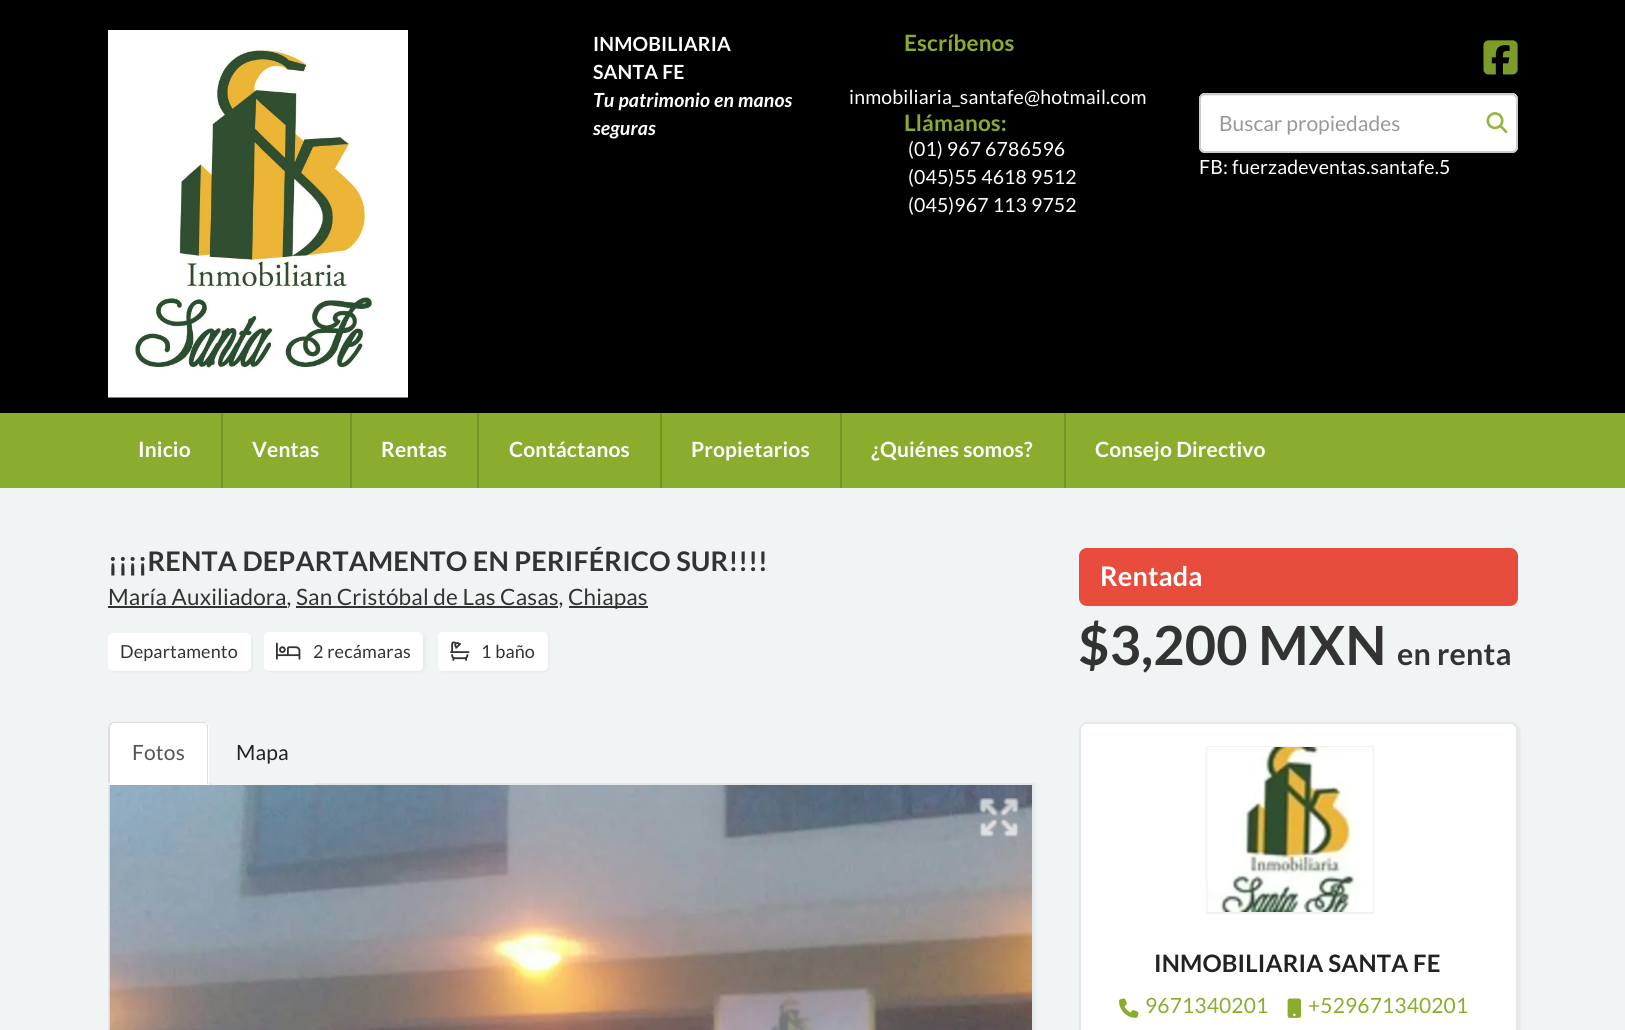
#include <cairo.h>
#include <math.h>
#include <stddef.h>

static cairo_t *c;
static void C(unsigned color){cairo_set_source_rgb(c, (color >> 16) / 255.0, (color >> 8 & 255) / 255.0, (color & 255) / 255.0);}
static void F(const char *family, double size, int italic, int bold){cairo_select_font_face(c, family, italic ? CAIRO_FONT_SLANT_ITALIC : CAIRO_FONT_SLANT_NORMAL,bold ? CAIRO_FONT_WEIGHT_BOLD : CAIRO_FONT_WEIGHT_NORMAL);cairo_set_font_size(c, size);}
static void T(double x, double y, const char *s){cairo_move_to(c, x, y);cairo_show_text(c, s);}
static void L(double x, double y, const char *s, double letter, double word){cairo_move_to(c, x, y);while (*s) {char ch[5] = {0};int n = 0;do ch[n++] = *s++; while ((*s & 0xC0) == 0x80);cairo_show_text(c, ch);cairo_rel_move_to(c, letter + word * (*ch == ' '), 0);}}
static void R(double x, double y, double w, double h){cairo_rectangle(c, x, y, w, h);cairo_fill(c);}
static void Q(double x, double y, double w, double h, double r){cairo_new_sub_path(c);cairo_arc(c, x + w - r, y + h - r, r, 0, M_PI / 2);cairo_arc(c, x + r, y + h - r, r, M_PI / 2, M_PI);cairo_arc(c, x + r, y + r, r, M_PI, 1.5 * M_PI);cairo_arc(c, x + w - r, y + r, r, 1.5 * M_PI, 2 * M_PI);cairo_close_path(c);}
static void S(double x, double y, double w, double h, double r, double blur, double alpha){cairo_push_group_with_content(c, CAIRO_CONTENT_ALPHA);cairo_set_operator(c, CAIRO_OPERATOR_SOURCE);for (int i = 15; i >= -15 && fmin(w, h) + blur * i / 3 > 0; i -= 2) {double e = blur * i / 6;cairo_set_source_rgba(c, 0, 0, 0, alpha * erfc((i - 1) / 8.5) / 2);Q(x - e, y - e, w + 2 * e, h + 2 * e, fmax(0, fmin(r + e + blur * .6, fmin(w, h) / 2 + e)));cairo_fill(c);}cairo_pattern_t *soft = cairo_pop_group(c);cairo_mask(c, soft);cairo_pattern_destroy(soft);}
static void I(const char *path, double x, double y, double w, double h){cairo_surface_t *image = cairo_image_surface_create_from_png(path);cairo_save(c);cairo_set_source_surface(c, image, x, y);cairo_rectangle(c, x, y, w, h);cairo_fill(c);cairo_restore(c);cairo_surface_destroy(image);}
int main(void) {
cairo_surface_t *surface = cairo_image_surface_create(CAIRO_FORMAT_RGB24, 1625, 1030);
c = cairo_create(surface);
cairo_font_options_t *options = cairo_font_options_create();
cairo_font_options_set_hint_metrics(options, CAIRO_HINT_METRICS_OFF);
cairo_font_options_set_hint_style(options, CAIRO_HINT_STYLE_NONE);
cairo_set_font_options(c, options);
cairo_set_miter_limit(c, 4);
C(0xf1f4f5);
cairo_paint(c);
C(0x000000);
R(0,0,1625,413);
I("1.png",108,30,300,368);
F("Lato",19.5,0,1);
C(0xffffff);
L(593,51,"INMOBILIARIA",.15,0);
L(593,79,"SANTA FE",.15,0);
F("Lato",19.5,1,1);
L(593,107,"Tu patrimonio en manos",.15,0);
L(593,135,"seguras",.15,0);
F("Lato",22.5,0,1);
C(0x8aad2d);
L(904,51,"Escríbenos",.15,0);
F("Lato",19.5,0,0);
C(0xffffff);
L(849,104,"inmobiliaria_santafe@hotmail.com",.15,0);
F("Lato",22.5,0,1);
C(0x8aad2d);
L(904,131,"Llámanos:",.15,0);
F("Lato",19.5,0,0);
C(0xffffff);
L(908,156,"(01) 967 6786596",.15,0);
L(908,184,"(045)55 4618 9512",.15,0);
L(908,212,"(045)967 113 9752",.15,0);
I("2.png",1483,40,35,35);
Q(1199,93,319,60,6);
cairo_fill(c);
C(0xececec);
cairo_new_path(c);
cairo_move_to(c,1204,96);
cairo_line_to(c,1512,96);
cairo_curve_to(c,1514,96,1516,98,1516,100);
cairo_line_to(c,1516,148);
cairo_line_to(c,1515,151);
cairo_curve_to(c,1516,150,1517,148,1517,147);
cairo_line_to(c,1517,100);
cairo_curve_to(c,1517,97,1515,95,1512,95);
cairo_line_to(c,1205,95);
cairo_curve_to(c,1202,95,1200,97,1200,100);
cairo_curve_to(c,1200,98,1202,96,1204,96);
cairo_close_path(c);
cairo_fill(c);
Q(1200,94,317,58,5);
C(0xcccccc);
cairo_stroke(c);
F("Lato",21,0,0);
C(0x999999);
T(1219,131,"Buscar propiedades");
I("3.png",1486,112,22,22);
F("Lato",19.5,0,0);
C(0xffffff);
L(1199,174,"FB: fuerzadeventas.santafe.5",.15,0);
C(0x8aad2d);
R(0,413,1625,75);
C(0x759326);
R(221,413,2,75);
F("Lato",21,0,1);
C(0xffffff);
L(138,457,"Inicio",.15,0);
C(0x759326);
R(350,413,2,75);
C(0xffffff);
L(252,457,"Ventas",.15,0);
C(0x759326);
R(477,413,2,75);
C(0xffffff);
L(381,457,"Rentas",.15,0);
C(0x759326);
R(660,413,2,75);
C(0xffffff);
L(509,457,"Contáctanos",.15,0);
C(0x759326);
R(840,413,2,75);
C(0xffffff);
L(691,457,"Propietarios",.15,0);
C(0x759326);
R(1064,413,2,75);
C(0xffffff);
L(871,457,"¿Quiénes somos?",.15,0);
L(1095,457,"Consejo Directivo",.15,0);
F("Lato",27,0,1);
C(0x333333);
L(108,571,"¡¡¡¡RENTA DEPARTAMENTO EN PERIFÉRICO SUR!!!!",.15,0);
R(108,606,179,2);
F("Lato",22.5,0,0);
L(108,605,"María Auxiliadora, San Cristóbal de Las Casas,",.15,0);
R(569,606,79,2);
L(568,605,"Chiapas",.15,0);
R(296,606,262,2);
C(0x000000);
S(110,635,142,37,5,1.5,.05);
C(0xffffff);
Q(108,633,143,38,5);
cairo_fill(c);
F("Lato",18,0,0);
C(0x333333);
L(120,658,"Departamento",.15,0);
C(0x000000);
S(266,633,159,39,5,1.5,.05);
C(0xffffff);
Q(264,632,159,39,5);
cairo_fill(c);
I("4.png",276,642,25,18);
C(0x333333);
L(313,658,"2 recámaras",.15,0);
C(0x000000);
S(440,633,109,39,5,1.5,.05);
C(0xffffff);
Q(438,632,110,39,5);
cairo_fill(c);
I("5.png",450,641,20,20);
C(0x333333);
L(481,658,"1 baño",.15,0);
C(0xe74c3c);
Q(1079,548,439,58,8);
cairo_fill(c);
F("Lato",27,0,1);
C(0xffffff);
L(1100,586,"Rentada",.15,0);
F("Lato",54,0,1);
C(0x333333);
L(1078,665,"$3,200 MXN",.15,0);
F("Lato",30.5,0,1);
L(1397,665,"en renta",.15,0);
C(0x000000);
S(110,785,925,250,0,1.5,.05);
cairo_rectangle(c,109,784,924,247);
C(0xe4e8eb);
cairo_stroke(c);
C(0xffffff);
cairo_new_path(c);
cairo_move_to(c,114,722);
cairo_line_to(c,203,722);
cairo_curve_to(c,206.5,722,209,724.5,209,728);
cairo_line_to(c,209,785);
cairo_line_to(c,108,785);
cairo_line_to(c,108,728);
cairo_curve_to(c,108,724.5,110.5,722,114,722);
cairo_close_path(c);
cairo_fill(c);
C(0xdddddd);
cairo_new_path(c);
cairo_move_to(c,114,722);
cairo_curve_to(c,113,722,111,722,110,723);
cairo_line_to(c,111,725);
cairo_curve_to(c,112,724,113,723,114,723);
cairo_line_to(c,202,723);
cairo_curve_to(c,204,723,205,724,206,724);
cairo_curve_to(c,206,722,204,722,202,722);
cairo_close_path(c);
cairo_fill(c);
cairo_new_path(c);
cairo_move_to(c,208,784);
cairo_line_to(c,208,728);
cairo_curve_to(c,208,726,208,724,206,724);
cairo_curve_to(c,206,725,207,726,207,728);
cairo_line_to(c,207,783);
cairo_close_path(c);
cairo_fill(c);
cairo_new_path(c);
cairo_move_to(c,108,728);
cairo_line_to(c,108,784);
cairo_line_to(c,110,782);
cairo_line_to(c,110,728);
cairo_curve_to(c,110,727,110,725,111,725);
cairo_line_to(c,110,723);
cairo_curve_to(c,109,724,108,726,108,728);
cairo_close_path(c);
cairo_fill(c);
F("Lato",21,0,0);
C(0x555555);
L(132,760,"Fotos",.15,0);
C(0xf1f4f5);
cairo_new_path(c);
cairo_move_to(c,218,722);
cairo_line_to(c,308,722);
cairo_curve_to(c,311.5,722,314,724.5,314,728);
cairo_line_to(c,314,785);
cairo_line_to(c,212,785);
cairo_line_to(c,212,728);
cairo_curve_to(c,212,724.5,214.5,722,218,722);
cairo_close_path(c);
cairo_fill(c);
C(0x222222);
L(236,760,"Mapa",.15,0);
I("6.png",109,785,923,245);
I("7.png",979,798,40,39);
C(0x000000);
S(1080,723,440,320,8,1.5,.05);
C(0xffffff);
Q(1080,723,437,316,7);
cairo_fill_preserve(c);
C(0xe4e8eb);
cairo_stroke(c);
cairo_rectangle(c,1207,747,166,166);
C(0xf2f2f2);
cairo_stroke(c);
I("8.png",1207,747,166,165);
F("Lato",24,0,1);
C(0x222222);
L(1154,972,"INMOBILIARIA SANTA FE",.15,0);
I("9.png",1119,998,20,20);
F("Lato",21,0,0);
C(0x8aad2d);
L(1145,1013,"9671340201",.15,0);
I("10.png",1287,998,14,20);
L(1308,1013,"+529671340201",.15,0);
cairo_surface_write_to_png(surface, "o.png");
cairo_font_options_destroy(options);
cairo_destroy(c);
cairo_surface_destroy(surface);
return 0;
}
